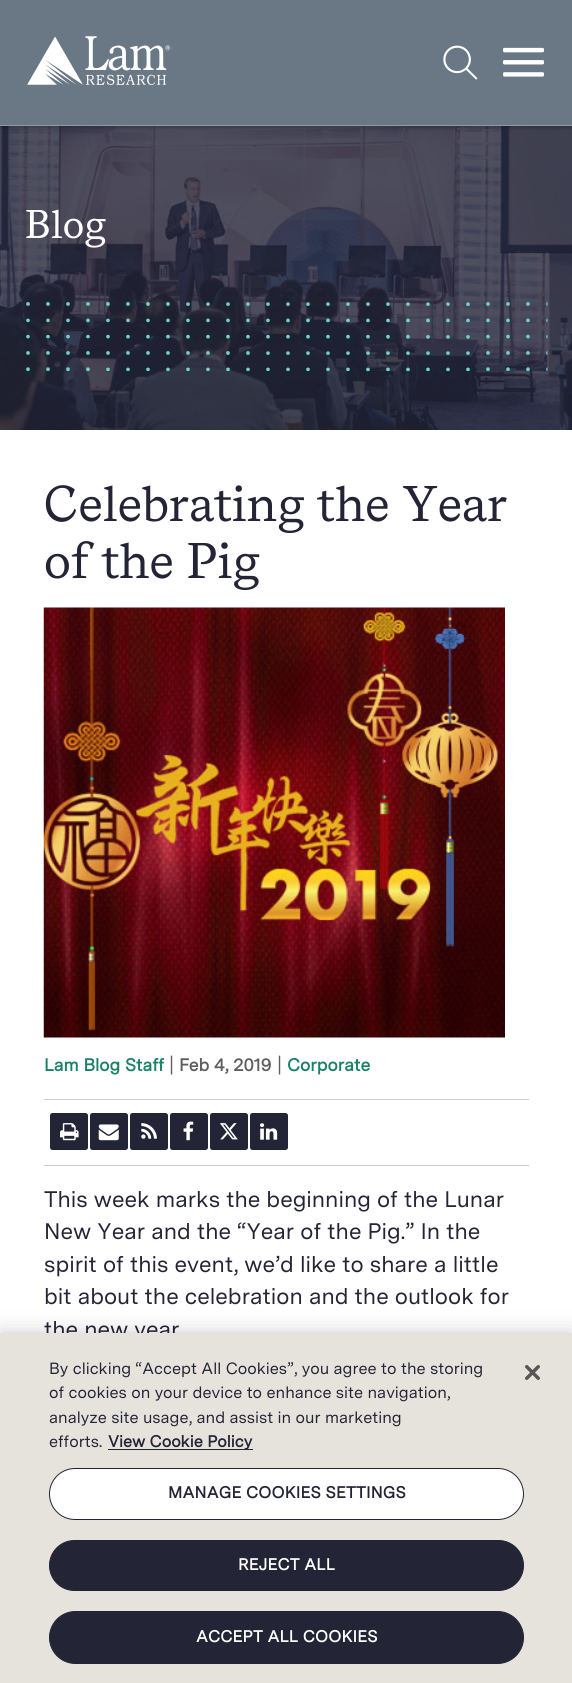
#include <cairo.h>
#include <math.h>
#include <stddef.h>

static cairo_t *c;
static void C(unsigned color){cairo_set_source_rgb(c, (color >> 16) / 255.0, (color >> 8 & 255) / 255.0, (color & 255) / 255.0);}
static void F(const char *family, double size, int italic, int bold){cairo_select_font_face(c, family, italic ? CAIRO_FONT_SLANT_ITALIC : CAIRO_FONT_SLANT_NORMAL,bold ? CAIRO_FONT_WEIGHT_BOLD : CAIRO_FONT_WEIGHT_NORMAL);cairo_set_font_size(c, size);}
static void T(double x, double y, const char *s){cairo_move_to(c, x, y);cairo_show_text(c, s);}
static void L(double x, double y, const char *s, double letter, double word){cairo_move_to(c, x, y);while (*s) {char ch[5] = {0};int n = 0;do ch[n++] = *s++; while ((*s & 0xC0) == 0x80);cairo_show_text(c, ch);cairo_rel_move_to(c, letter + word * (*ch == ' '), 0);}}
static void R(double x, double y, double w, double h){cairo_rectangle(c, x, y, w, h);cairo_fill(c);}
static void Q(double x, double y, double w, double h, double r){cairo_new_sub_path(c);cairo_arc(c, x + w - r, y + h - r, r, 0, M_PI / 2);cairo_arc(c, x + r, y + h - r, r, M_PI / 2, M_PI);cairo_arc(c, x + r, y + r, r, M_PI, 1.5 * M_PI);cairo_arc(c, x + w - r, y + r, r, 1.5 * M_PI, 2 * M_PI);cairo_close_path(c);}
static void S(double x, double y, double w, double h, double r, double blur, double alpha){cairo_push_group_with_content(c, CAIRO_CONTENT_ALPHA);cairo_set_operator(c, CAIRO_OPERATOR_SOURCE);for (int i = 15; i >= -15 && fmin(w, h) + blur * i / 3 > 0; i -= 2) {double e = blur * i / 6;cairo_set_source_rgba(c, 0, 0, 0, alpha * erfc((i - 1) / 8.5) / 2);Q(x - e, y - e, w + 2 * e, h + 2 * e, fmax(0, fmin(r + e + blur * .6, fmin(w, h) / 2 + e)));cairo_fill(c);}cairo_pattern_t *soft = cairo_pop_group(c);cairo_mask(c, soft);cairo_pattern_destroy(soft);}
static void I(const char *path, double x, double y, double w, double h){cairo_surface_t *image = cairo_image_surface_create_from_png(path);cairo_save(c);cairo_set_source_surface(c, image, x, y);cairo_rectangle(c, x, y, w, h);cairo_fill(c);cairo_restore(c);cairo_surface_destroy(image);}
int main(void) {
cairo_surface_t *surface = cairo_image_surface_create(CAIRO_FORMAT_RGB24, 572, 1683);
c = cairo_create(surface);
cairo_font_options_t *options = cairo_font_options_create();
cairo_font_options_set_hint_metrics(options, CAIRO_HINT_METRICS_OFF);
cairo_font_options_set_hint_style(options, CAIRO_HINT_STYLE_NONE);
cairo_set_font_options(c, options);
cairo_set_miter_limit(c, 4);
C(0xffffff);
cairo_paint(c);
I("4.png",0,126,572,304);
C(0x000000);
S(0,1,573,127,0,2,.25);
C(0x6a7885);
R(0,0,572,125);
C(0x8f9aa4);
R(0,125,572,1);
I("1.png",27,36,144,49);
I("2.png",443,45,35,35);
I("3.png",503,47,41,30);
F("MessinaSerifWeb",40,0,0);
C(0xffffff);
T(25,238,"Blog");
I("5.png",26,302,522,70);
F("MessinaSerifWeb",50,0,0);
C(0x242437);
T(44,521,"Celebrating the Year");
T(44,578,"of the Pig");
I("6.png",43,607,462,431);
F("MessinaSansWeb",17.5,0,1);
C(0x188167);
T(44,1071,"Lam Blog Staff");
F("Lato",20,0,0);
C(0x5e5e5e);
T(169,1071,"|");
F("MessinaSansWeb",17.5,0,1);
T(179,1071,"Feb 4, 2019");
F("Lato",20,0,0);
T(277,1071,"|");
F("MessinaSansWeb",17.5,0,1);
C(0x188167);
T(287,1071,"Corporate");
C(0xcccccc);
R(44,1099,485,1);
R(44,1165,485,1);
C(0x242437);
Q(50,1113,38,37,2.5);
cairo_fill(c);
I("7.png",60,1123,19,18);
Q(90,1113,38,37,2.5);
cairo_fill(c);
I("8.png",98,1124,21,17);
Q(130,1113,38,37,2.5);
cairo_fill(c);
I("9.png",141,1123,16,16);
Q(170,1113,38,37,2.5);
cairo_fill(c);
I("10.png",183,1121,11,20);
Q(210,1113,38,37,2.5);
cairo_fill(c);
I("11.png",219,1123,19,17);
Q(250,1113,38,37,2.5);
cairo_fill(c);
I("12.png",260,1123,18,17);
F("MessinaSansWeb",22.5,0,0);
T(44,1207,"This week marks the beginning of the Lunar");
T(44,1239,"New Year and the “Year of the Pig.” In the");
T(44,1272,"spirit of this event, we’d like to share a little");
T(44,1304,"bit about the celebration and the outlook for");
T(44,1337,"the new year");
C(0x000000);
S(0,1333,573,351,0,11,.2);
C(0xe6e3dc);
R(0,1333,572,350);
F("MessinaSansWeb",16.25,0,0);
C(0x242437);
T(49,1374,"By clicking “Accept All Cookies”, you agree to the storing");
T(49,1398,"of cookies on your device to enhance site navigation,");
T(49,1423,"analyze site usage, and assist in our marketing");
T(49,1447,"efforts.");
R(108,1449,145,1);
F("MessinaSansWeb",16.25,0,1);
T(108,1447,"View Cookie Policy");
C(0xffffff);
Q(49.5,1468.5,474,51,25.5);
cairo_fill_preserve(c);
C(0x242437);
cairo_set_line_width(c,1);
cairo_stroke(c);
L(168,1498,"MANAGE COOKIES SETTINGS",.2,0);
Q(49.5,1540.5,474,50,25);
cairo_fill_preserve(c);
cairo_stroke(c);
C(0xffffff);
L(238,1570,"REJECT ALL",.2,0);
C(0x242437);
Q(49.5,1611.5,474,52,26);
cairo_fill_preserve(c);
cairo_stroke(c);
C(0xffffff);
L(196,1642,"ACCEPT ALL COOKIES",.2,0);
I("13.png",525,1365,15,15);
cairo_surface_write_to_png(surface, "o.png");
cairo_font_options_destroy(options);
cairo_destroy(c);
cairo_surface_destroy(surface);
return 0;
}
